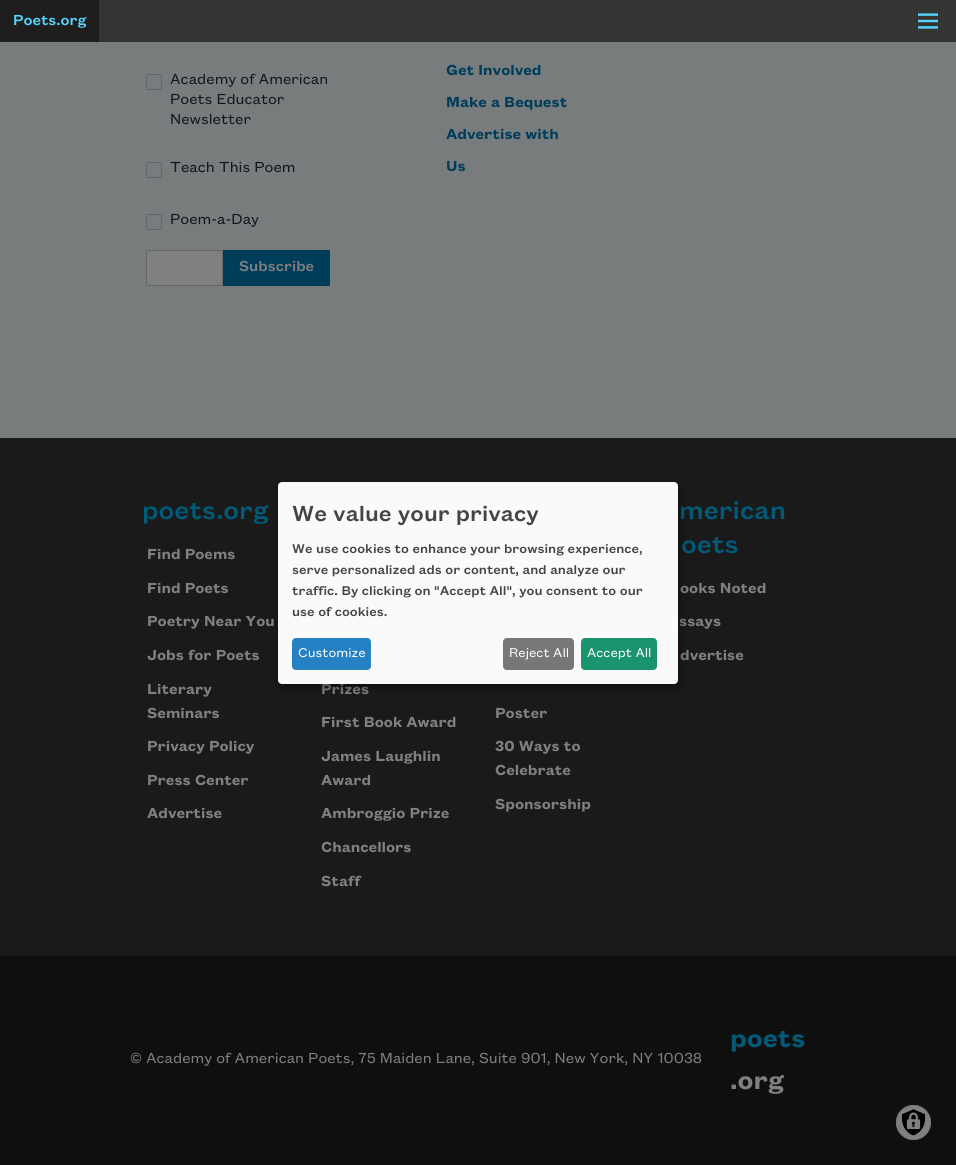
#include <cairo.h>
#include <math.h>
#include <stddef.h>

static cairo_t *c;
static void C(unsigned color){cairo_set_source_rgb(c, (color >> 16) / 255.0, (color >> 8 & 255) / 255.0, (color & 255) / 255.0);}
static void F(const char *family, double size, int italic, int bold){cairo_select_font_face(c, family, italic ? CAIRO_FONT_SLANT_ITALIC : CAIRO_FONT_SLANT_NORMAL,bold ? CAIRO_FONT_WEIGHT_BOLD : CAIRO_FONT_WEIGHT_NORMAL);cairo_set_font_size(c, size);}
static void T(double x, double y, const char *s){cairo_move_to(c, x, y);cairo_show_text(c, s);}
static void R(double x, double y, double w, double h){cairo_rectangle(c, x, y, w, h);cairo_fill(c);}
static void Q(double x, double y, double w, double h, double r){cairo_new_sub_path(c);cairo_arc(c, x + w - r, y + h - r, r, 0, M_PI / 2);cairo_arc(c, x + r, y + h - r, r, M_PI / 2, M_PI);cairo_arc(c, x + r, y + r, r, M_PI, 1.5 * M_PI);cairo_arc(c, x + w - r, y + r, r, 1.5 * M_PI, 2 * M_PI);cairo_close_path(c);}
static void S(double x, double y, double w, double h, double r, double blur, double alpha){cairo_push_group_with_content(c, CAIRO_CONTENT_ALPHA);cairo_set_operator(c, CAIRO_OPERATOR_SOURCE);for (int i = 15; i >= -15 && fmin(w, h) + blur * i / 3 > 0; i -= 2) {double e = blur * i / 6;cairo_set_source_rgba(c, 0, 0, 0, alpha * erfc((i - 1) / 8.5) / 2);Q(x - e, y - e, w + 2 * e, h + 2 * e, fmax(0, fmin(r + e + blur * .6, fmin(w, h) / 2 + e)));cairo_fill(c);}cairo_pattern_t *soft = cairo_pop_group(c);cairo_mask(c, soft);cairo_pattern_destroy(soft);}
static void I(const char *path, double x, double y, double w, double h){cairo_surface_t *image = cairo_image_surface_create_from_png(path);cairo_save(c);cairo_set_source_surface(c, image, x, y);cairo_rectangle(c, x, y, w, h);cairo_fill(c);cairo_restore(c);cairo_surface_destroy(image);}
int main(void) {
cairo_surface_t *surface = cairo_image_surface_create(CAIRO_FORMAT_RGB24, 956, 1165);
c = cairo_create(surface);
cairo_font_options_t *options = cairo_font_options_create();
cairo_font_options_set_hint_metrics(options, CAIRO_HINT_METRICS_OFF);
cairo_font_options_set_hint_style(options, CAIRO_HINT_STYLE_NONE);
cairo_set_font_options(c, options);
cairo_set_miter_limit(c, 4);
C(0x797c7d);
cairo_paint(c);
C(0x343434);
R(99,0,857,42);
C(0x1e1e1e);
R(0,0,99,42);
F("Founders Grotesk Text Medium",16,0,0);
C(0x59d6ff);
T(13,25,"Poets.org");
I("1.png",918,13,20,16);
Q(146.5,74.5,15,15,1.5);
C(0x62676b);
cairo_set_line_width(c,1);
cairo_stroke(c);
F("Founders Grotesk Text",16,0,0);
C(0x11161b);
T(170,84,"Academy of American");
T(170,104,"Poets Educator");
T(170,124,"Newsletter");
Q(146.5,162.5,15,15,1.5);
C(0x62676b);
cairo_stroke(c);
C(0x11161b);
T(170,172,"Teach This Poem");
Q(146.5,214.5,15,15,1.5);
C(0x62676b);
cairo_stroke(c);
C(0x11161b);
T(170,224,"Poem-a-Day");
C(0x808080);
cairo_rectangle(c,146.5,250.5,76,35);
cairo_fill_preserve(c);
C(0x62676b);
cairo_stroke(c);
C(0x003d5a);
R(223,250,107,36);
F("Founders Grotesk Text Medium",16,0,0);
C(0x808080);
T(239,271,"Subscribe");
F("Founders Grotesk Text SemiBold",16,0,0);
C(0x003d5a);
T(446,75,"Get Involved");
T(446,107,"Make a Bequest");
T(446,139,"Advertise with");
T(446,171,"Us");
C(0x1a1a1a);
R(0,438,956,518);
F("Founders Grotesk Text Medium",28,0,0);
C(0x005a78);
T(142,519,"poets.org");
F("Founders Grotesk Text SemiBold",16,0,0);
C(0x808080);
T(147,559,"Find Poems");
T(147,593,"Find Poets");
T(147,626,"Poetry Near You");
T(147,660,"Jobs for Poets");
T(147,694,"Literary");
T(147,718,"Seminars");
T(147,751,"Privacy Policy");
T(147,785,"Press Center");
T(147,818,"Advertise");
T(321,694,"Prizes");
T(321,727,"First Book Award");
T(321,761,"James Laughlin");
T(321,785,"Award");
T(321,818,"Ambroggio Prize");
T(321,852,"Chancellors");
T(321,886,"Staff");
T(495,718,"Poster");
T(495,751,"30 Ways to");
T(495,775,"Celebrate");
T(495,809,"Sponsorship");
F("Founders Grotesk Text Medium",28,0,0);
C(0x005a78);
T(679,519,"merican");
T(681,553,"oets");
F("Founders Grotesk Text SemiBold",16,0,0);
C(0x808080);
T(680,593,"ooks Noted");
T(679,626,"ssays");
T(680,660,"dvertise");
C(0x0f0f0f);
R(0,956,956,209);
F("Founders Grotesk Text",16,0,0);
C(0x808080);
T(130,1063,"© Academy of American Poets, 75 Maiden Lane, Suite 901, New York, NY 10038");
F("Founders Grotesk Text SemiBold",28,0,0);
C(0x005a78);
T(730,1047,"poets");
C(0x808080);
T(730,1089,".org");
C(0x000000);
S(283,487,400,202,4,5,.19);
S(278,486,400,202,4,3,.2);
C(0xfafafa);
Q(278,482,400,202,4);
cairo_fill(c);
F("Founders Grotesk Text Medium",24,0,0);
C(0x444444);
T(292,521,"We value your privacy");
F("Founders Grotesk Text Medium",14,0,0);
T(292,553,"We use cookies to enhance your browsing experience,");
T(292,574,"serve personalized ads or content, and analyze our");
T(292,595,"traffic. By clicking on \"Accept All\", you consent to our");
T(292,616,"use of cookies.");
C(0x2581c4);
Q(292,638,79,32,4);
cairo_fill(c);
F("Founders Grotesk Text",14,0,0);
C(0xffffff);
T(298,657,"Customize");
C(0x777777);
Q(503,638,71,32,4);
cairo_fill(c);
C(0xffffff);
T(509,657,"Reject All");
C(0x1a936f);
Q(581,638,76,32,4);
cairo_fill(c);
C(0xffffff);
T(587,657,"Accept All");
C(0x808080);
cairo_new_path(c);
cairo_arc(c,913.5,1122.5,17.5,0,2 * M_PI);
cairo_fill(c);
I("2.png",901,1109,25,27);
cairo_arc(c,913.5,1122.5,17,0,2 * M_PI);
C(0x757575);
cairo_stroke(c);
cairo_surface_write_to_png(surface, "o.png");
cairo_font_options_destroy(options);
cairo_destroy(c);
cairo_surface_destroy(surface);
return 0;
}
